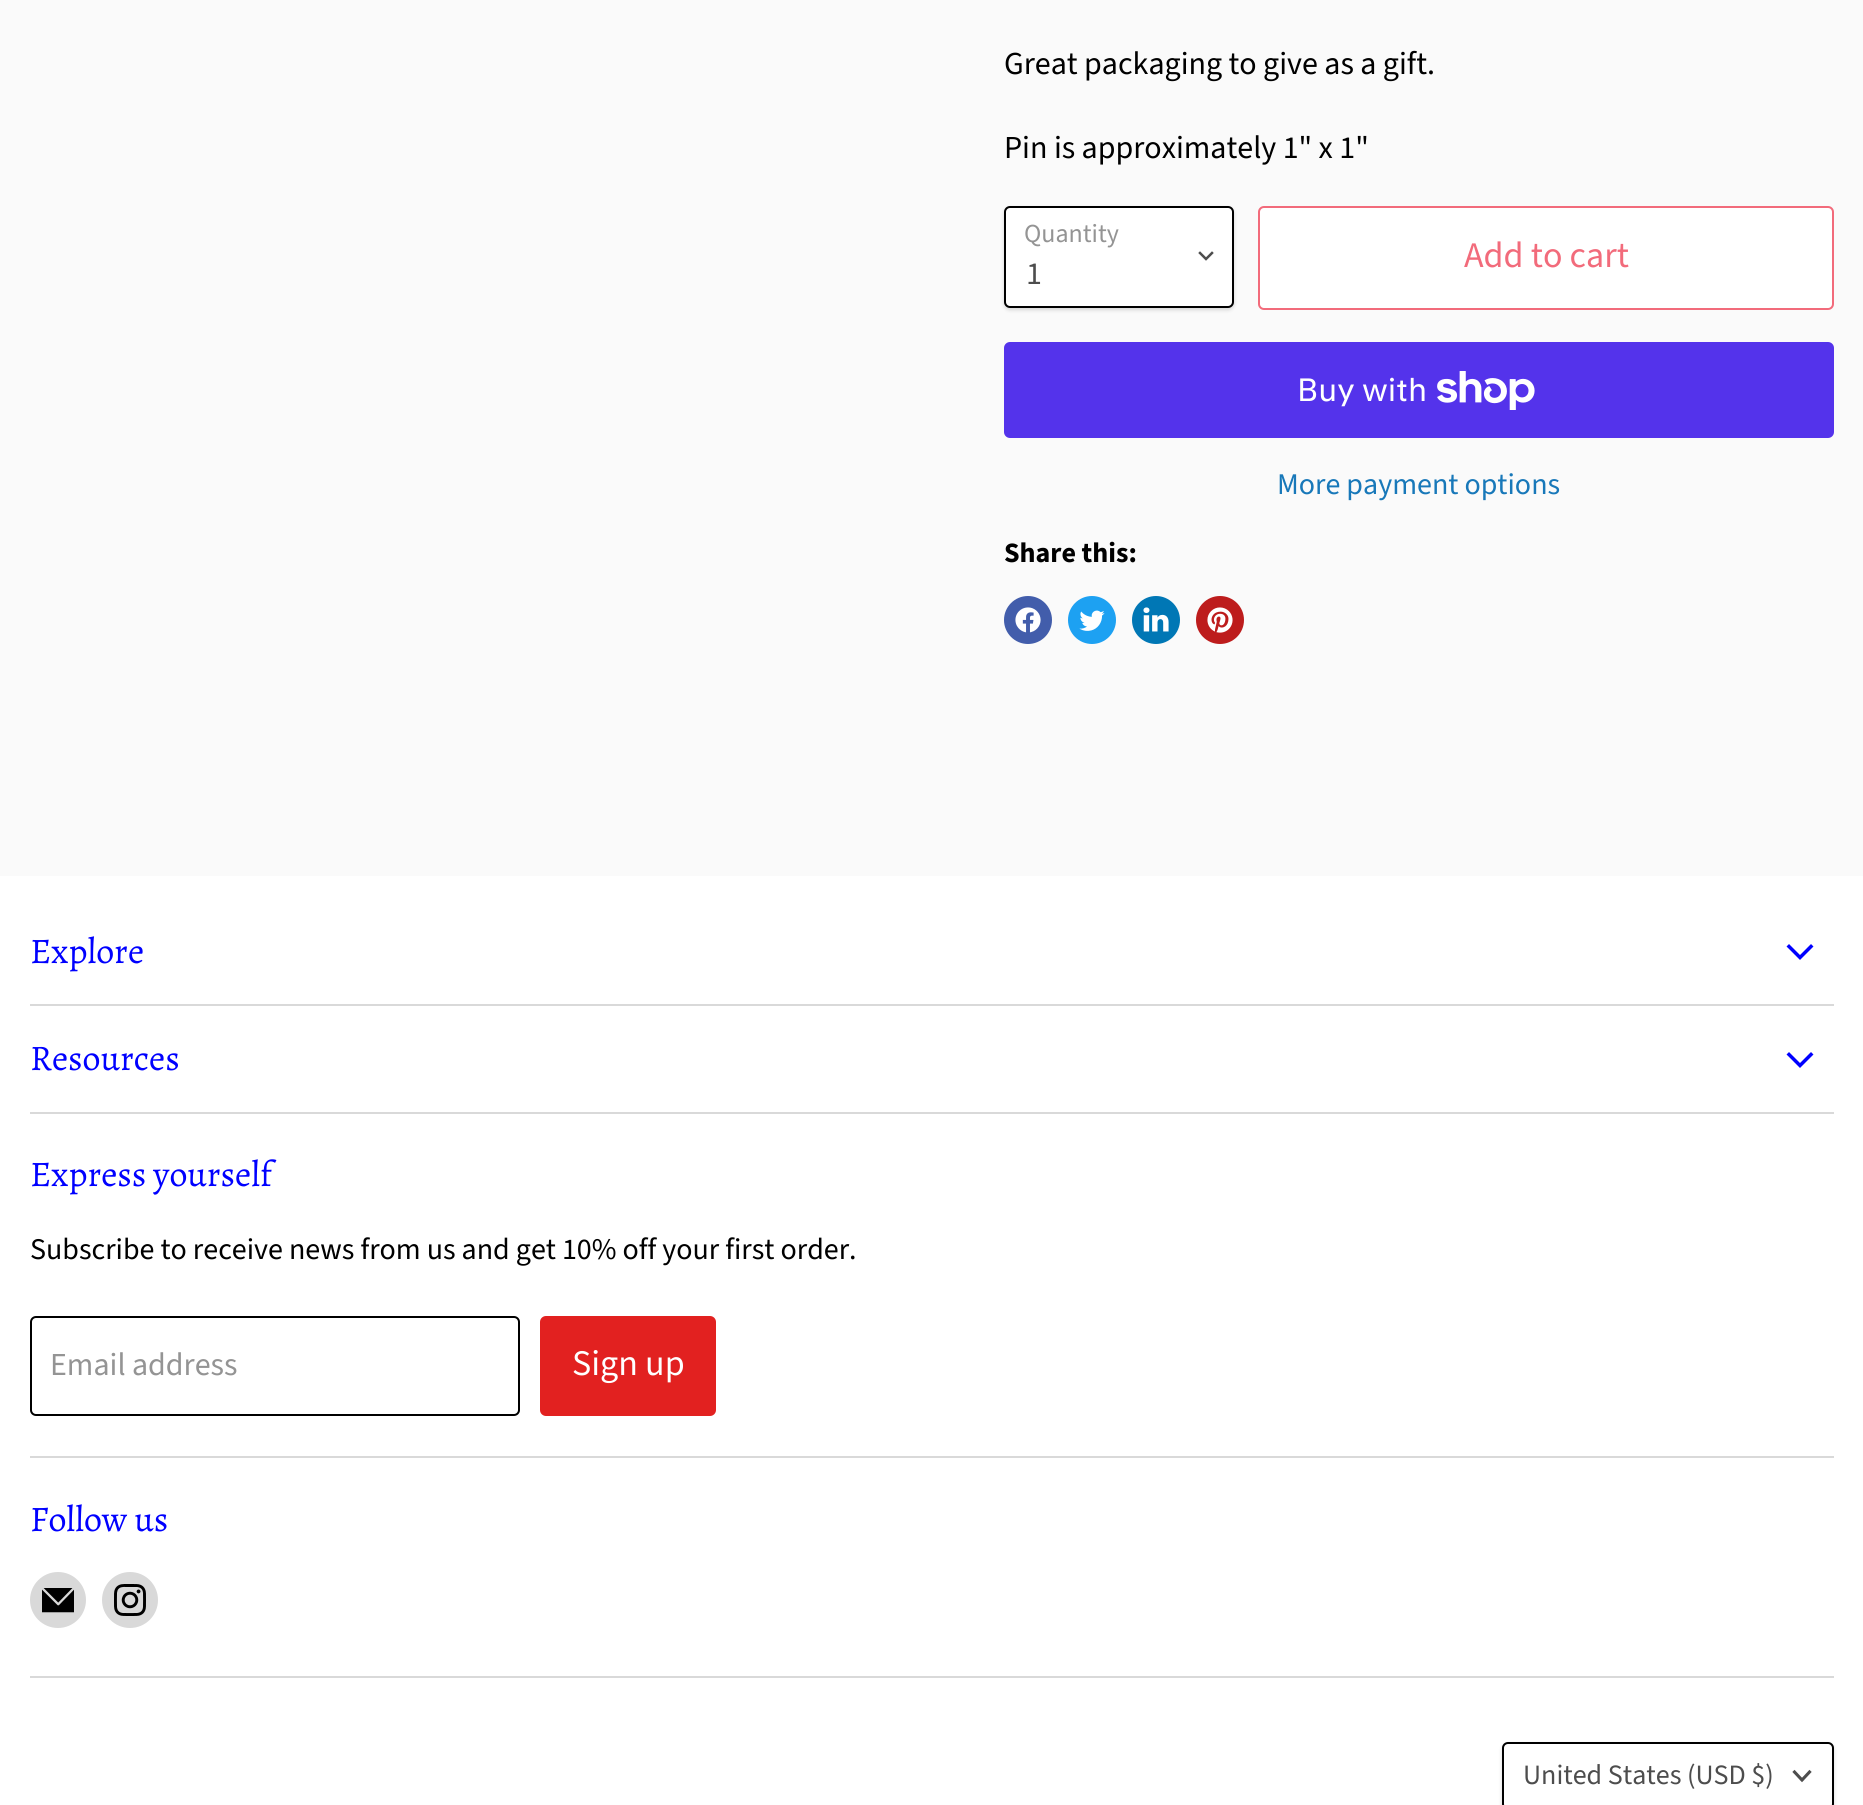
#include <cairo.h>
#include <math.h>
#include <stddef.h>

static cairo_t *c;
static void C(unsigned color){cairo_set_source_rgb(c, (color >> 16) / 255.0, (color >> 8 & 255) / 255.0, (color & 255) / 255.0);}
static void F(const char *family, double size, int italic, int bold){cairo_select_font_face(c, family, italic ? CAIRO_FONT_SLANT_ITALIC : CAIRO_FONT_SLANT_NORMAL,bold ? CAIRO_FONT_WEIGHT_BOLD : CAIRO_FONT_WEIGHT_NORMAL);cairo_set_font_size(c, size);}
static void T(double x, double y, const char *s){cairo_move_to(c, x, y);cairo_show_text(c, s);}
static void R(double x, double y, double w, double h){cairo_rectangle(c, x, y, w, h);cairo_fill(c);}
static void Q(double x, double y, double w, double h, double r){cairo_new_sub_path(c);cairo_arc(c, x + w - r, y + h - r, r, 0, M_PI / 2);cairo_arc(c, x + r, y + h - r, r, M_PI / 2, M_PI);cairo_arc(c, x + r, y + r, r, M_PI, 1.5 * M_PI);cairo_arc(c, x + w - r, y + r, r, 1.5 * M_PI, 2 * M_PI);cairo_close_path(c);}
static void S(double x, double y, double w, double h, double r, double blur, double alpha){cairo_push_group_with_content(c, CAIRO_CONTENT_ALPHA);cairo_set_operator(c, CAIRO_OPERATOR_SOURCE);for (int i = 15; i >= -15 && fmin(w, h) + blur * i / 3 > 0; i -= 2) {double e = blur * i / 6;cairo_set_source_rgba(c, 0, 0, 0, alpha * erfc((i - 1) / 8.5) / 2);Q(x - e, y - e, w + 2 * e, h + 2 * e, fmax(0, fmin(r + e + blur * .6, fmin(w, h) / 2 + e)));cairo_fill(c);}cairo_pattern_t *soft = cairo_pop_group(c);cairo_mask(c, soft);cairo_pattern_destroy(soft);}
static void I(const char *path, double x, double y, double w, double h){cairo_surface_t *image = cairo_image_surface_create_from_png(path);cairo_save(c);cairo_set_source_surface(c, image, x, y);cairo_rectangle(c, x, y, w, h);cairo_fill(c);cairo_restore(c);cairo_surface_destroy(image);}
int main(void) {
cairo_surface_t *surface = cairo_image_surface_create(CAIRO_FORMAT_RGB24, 1863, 1805);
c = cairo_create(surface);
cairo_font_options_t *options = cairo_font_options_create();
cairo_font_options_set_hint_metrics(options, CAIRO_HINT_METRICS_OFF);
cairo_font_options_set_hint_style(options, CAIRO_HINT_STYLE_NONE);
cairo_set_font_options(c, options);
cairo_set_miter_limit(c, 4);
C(0xfafafa);
cairo_paint(c);
F("Source Sans Pro",32,0,0);
C(0x000000);
T(1004,74,"Great packaging to give as a gift.");
T(1004,158,"Pin is approximately 1\" x 1\"");
C(0x000000);
S(1004,208,230,102,6,2,.15);
C(0xffffff);
Q(1005,207,228,100,5);
cairo_fill_preserve(c);
C(0x000000);
cairo_stroke(c);
F("Source Sans Pro",26,0,0);
C(0x949494);
T(1024,242,"Quantity");
cairo_new_path(c);
cairo_move_to(c,1206,259);
cairo_line_to(c,1212,253);
cairo_move_to(c,1206,259);
cairo_line_to(c,1200,253);
C(0x4d4d4d);
cairo_set_line_width(c,2.5);
cairo_set_line_cap(c,CAIRO_LINE_CAP_SQUARE);
cairo_stroke(c);
F("Source Sans Pro",32,0,0);
T(1026,284,"1");
C(0xffffff);
Q(1259,207,574,102,5);
cairo_fill_preserve(c);
C(0xf26b7b);
cairo_set_line_width(c,2);
cairo_set_line_cap(c,CAIRO_LINE_CAP_BUTT);
cairo_stroke(c);
F("Source Sans Pro",36,0,0);
T(1464,267,"Add to cart");
C(0x5433eb);
Q(1004,342,830,96,6);
cairo_fill(c);
F("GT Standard",32,0,0);
C(0xffffff);
T(1297,401,"Buy with");
I("1.png",1437,371,98,39);
F("Source Sans Pro",30,0,0);
C(0x1878b9);
T(1277,494,"More payment options");
F("Source Sans Pro",28,0,1);
C(0x000000);
T(1004,562,"Share this:");
C(0x425dab);
cairo_new_path(c);
cairo_arc(c,1028,620,24,0,2 * M_PI);
cairo_fill(c);
I("2.png",1015,607,26,26);
C(0x1da1f2);
cairo_arc(c,1092,620,24,0,2 * M_PI);
cairo_fill(c);
I("3.png",1079,610,26,21);
C(0x0077b5);
cairo_arc(c,1156,620,24,0,2 * M_PI);
cairo_fill(c);
I("4.png",1143,607,26,25);
C(0xbd1c1c);
cairo_arc(c,1220,620,24,0,2 * M_PI);
cairo_fill(c);
I("5.png",1207,607,26,26);
C(0xffffff);
R(0,876,1863,929);
C(0xd9d9d9);
R(30,1004,1804,2);
F("Alegreya",36,0,0);
C(0x0000ff);
T(30,963,"Explore");
cairo_new_path(c);
cairo_move_to(c,1800,957.5);
cairo_line_to(c,1811,946.5);
cairo_move_to(c,1800,957.5);
cairo_line_to(c,1789,946.5);
cairo_set_line_width(c,3.5);
cairo_set_line_cap(c,CAIRO_LINE_CAP_SQUARE);
cairo_stroke(c);
C(0xd9d9d9);
R(30,1112,1804,2);
C(0x0000ff);
T(30,1070,"Resources");
cairo_new_path(c);
cairo_move_to(c,1800,1065.5);
cairo_line_to(c,1811,1054.5);
cairo_move_to(c,1800,1065.5);
cairo_line_to(c,1789,1054.5);
cairo_stroke(c);
C(0xd9d9d9);
R(30,1456,1804,2);
C(0x0000ff);
T(30,1186,"Express yourself");
F("Source Sans Pro",30,0,0);
C(0x000000);
T(30,1259,"Subscribe to receive news from us and get 10% off your first order.");
Q(31,1317,488,98,5);
cairo_set_line_width(c,2);
cairo_set_line_cap(c,CAIRO_LINE_CAP_BUTT);
cairo_stroke(c);
F("Source Sans Pro",32,0,0);
C(0x949494);
T(50,1375,"Email address");
C(0xe22120);
Q(541,1317,174,98,5);
cairo_fill_preserve(c);
cairo_stroke(c);
F("Source Sans Pro",36,0,0);
C(0xffffff);
T(572,1375,"Sign up");
C(0xd9d9d9);
R(30,1676,1804,2);
F("Alegreya",36,0,0);
C(0x0000ff);
T(30,1531,"Follow us");
C(0xd9d9d9);
cairo_new_path(c);
cairo_arc(c,58,1600,28,0,2 * M_PI);
cairo_fill(c);
I("6.png",42,1588,32,25);
cairo_arc(c,130,1600,28,0,2 * M_PI);
cairo_fill(c);
I("7.png",114,1584,32,32);
C(0x000000);
S(1502,1744,332,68,6,2,.15);
C(0xffffff);
Q(1503,1743,330,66,5);
cairo_fill_preserve(c);
C(0x000000);
cairo_stroke(c);
F("Source Sans Pro",28,0,0);
C(0x4d4d4d);
T(1523,1784,"United States (USD $)");
cairo_new_path(c);
cairo_move_to(c,1802,1780);
cairo_line_to(c,1809.5,1772);
cairo_move_to(c,1802,1780);
cairo_line_to(c,1794.5,1772);
cairo_set_line_width(c,3.1);
cairo_set_line_cap(c,CAIRO_LINE_CAP_SQUARE);
cairo_stroke(c);
cairo_surface_write_to_png(surface, "o.png");
cairo_font_options_destroy(options);
cairo_destroy(c);
cairo_surface_destroy(surface);
return 0;
}
